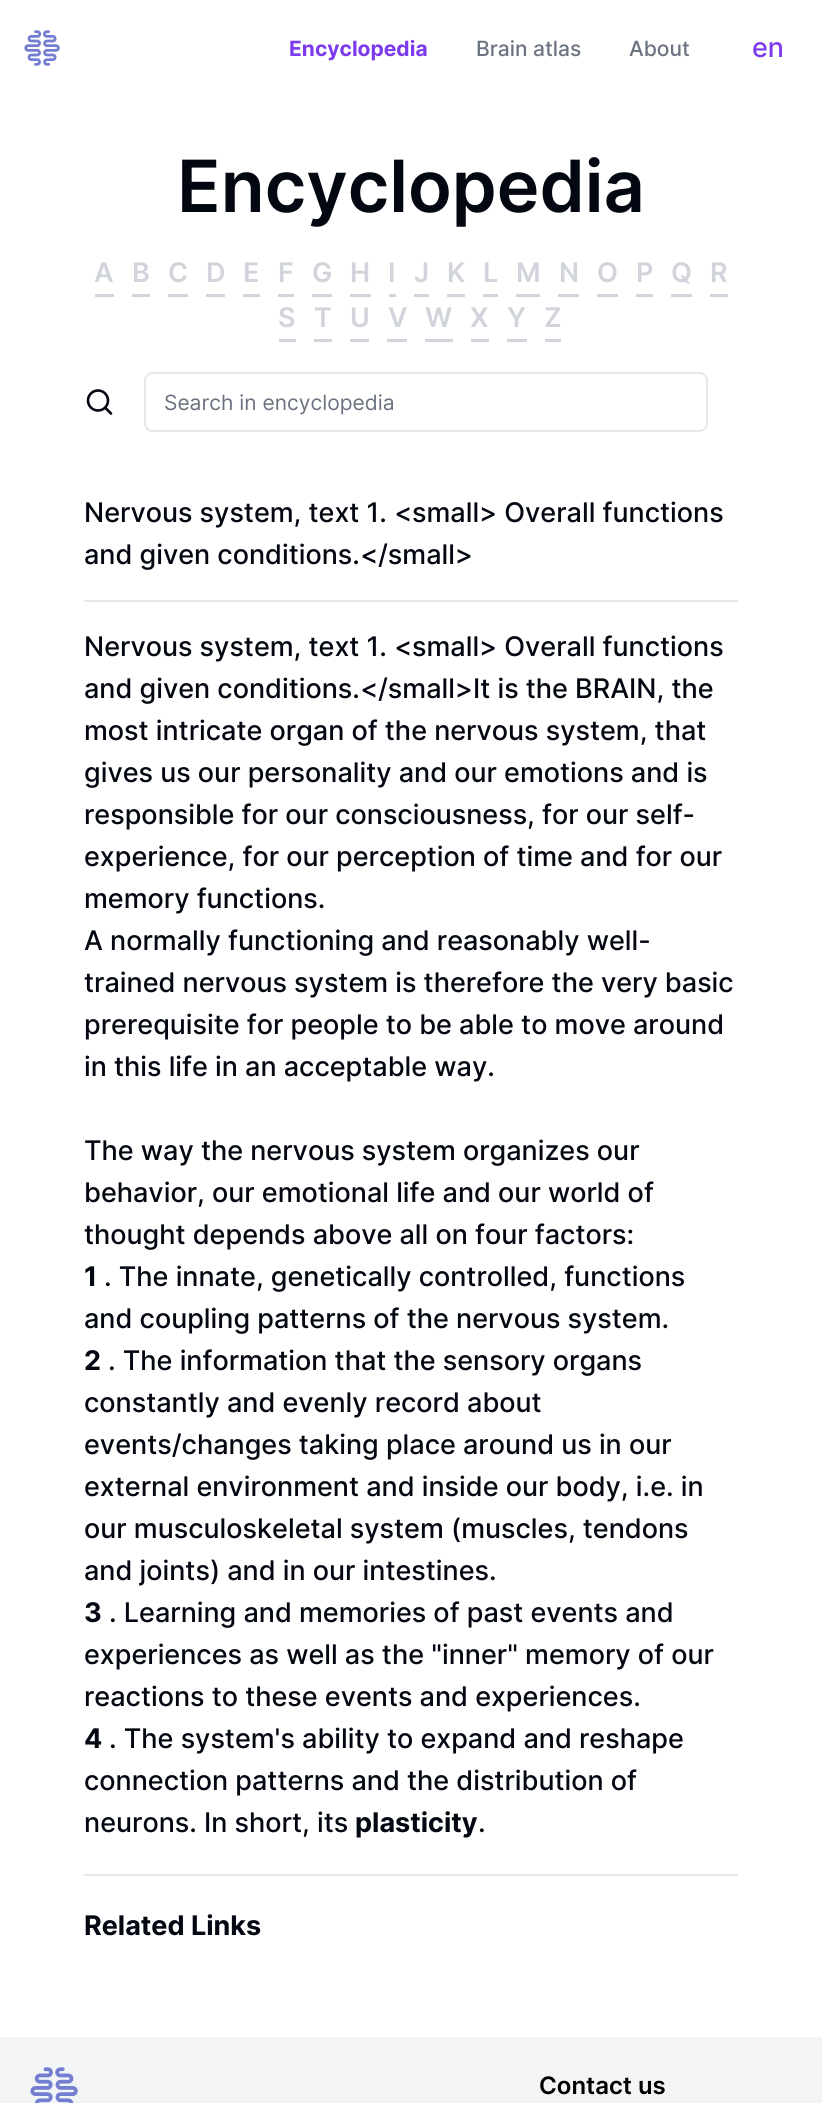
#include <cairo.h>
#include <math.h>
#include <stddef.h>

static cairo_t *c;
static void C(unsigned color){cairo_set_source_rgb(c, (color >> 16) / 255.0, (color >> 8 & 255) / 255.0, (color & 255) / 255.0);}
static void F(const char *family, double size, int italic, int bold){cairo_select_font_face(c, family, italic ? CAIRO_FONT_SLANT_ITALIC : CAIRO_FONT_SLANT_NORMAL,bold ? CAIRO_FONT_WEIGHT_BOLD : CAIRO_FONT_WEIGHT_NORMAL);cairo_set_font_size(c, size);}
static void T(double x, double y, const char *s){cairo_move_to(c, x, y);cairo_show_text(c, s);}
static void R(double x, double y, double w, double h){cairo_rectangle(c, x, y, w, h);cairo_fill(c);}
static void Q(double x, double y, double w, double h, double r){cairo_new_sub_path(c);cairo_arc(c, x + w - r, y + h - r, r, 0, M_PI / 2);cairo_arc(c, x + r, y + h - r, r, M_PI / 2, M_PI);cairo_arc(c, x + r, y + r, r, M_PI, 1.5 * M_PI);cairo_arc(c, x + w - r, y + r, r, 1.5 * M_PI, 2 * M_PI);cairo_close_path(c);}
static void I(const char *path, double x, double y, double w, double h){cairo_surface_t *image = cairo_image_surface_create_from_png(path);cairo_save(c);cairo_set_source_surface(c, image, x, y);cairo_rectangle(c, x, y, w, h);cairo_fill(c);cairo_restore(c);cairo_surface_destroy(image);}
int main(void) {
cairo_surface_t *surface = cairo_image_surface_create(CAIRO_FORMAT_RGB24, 822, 2103);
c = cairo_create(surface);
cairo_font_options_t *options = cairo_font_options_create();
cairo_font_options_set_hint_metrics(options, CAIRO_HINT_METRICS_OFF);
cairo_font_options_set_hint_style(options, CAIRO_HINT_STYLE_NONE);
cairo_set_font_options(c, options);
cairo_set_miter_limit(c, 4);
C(0xffffff);
cairo_paint(c);
I("1.png",24,30,36,36);
F("Inter",21,0,1);
C(0x7c3aed);
T(289,56,"Encyclopedia");
F("Inter Medium",21,0,0);
C(0x6b7280);
T(476,56,"Brain atlas");
T(629,56,"About");
F("Inter Medium",27,0,0);
C(0x7c3aed);
T(752,57,"en");
F("Inter SemiBold",72,0,0);
C(0x030712);
T(177,212,"Encyclopedia");
F("Inter SemiBold",27,0,0);
C(0xd1d5db);
T(94,282,"A");
R(95,294,19,3);
T(132,282,"B");
R(132,294,18,3);
T(168,282,"C");
R(168,294,20,3);
T(206,282,"D");
R(206,294,19,3);
T(243,282,"E");
R(243,294,17,3);
T(278,282,"F");
R(278,294,16,3);
T(312,282,"G");
R(312,294,20,3);
T(350,282,"H");
R(350,294,21,3);
T(388,282,"I");
R(389,294,7,3);
T(414,282,"J");
R(414,294,15,3);
T(447,282,"K");
R(447,294,18,3);
T(483,282,"L");
R(483,294,15,3);
T(516,282,"M");
R(516,294,24,3);
T(559,282,"N");
R(558,294,21,3);
T(597,282,"O");
R(597,294,21,3);
T(636,282,"P");
R(636,294,17,3);
T(671,282,"Q");
R(671,294,21,3);
T(710,282,"R");
R(710,294,18,3);
T(278,327,"S");
R(279,339,17,3);
T(314,327,"T");
R(314,339,18,3);
T(350,327,"U");
R(350,339,19,3);
T(388,327,"V");
R(387,339,20,3);
T(425,327,"W");
R(425,339,28,3);
T(470,327,"X");
R(471,339,18,3);
T(507,327,"Y");
R(507,339,20,3);
T(544,327,"Z");
R(545,339,16,3);
cairo_new_path(c);
cairo_arc(c,98,400.5,10,0,2 * M_PI);
C(0x030712);
cairo_set_line_width(c,2.6);
cairo_stroke(c);
cairo_new_path(c);
cairo_move_to(c,111,413.5);
cairo_line_to(c,105.5,408);
cairo_set_line_cap(c,CAIRO_LINE_CAP_ROUND);
cairo_set_line_join(c,CAIRO_LINE_JOIN_ROUND);
cairo_stroke(c);
Q(145,373,562,58,8);
C(0xe5e7eb);
cairo_set_line_width(c,2);
cairo_set_line_cap(c,CAIRO_LINE_CAP_BUTT);
cairo_set_line_join(c,CAIRO_LINE_JOIN_MITER);
cairo_stroke(c);
F("Inter",21,0,0);
C(0x6b7280);
T(164,410,"Search in encyclopedia");
F("Inter Medium",27,0,0);
C(0x030712);
T(84,522,"Nervous system, text 1. <small> Overall functions");
T(84,564,"and given conditions.</small>");
C(0xe5e7eb);
R(84,600,654,2);
C(0x030712);
T(84,656,"Nervous system, text 1. <small> Overall functions");
T(84,698,"and given conditions.</small>It is the BRAIN, the");
T(84,740,"most intricate organ of the nervous system, that");
T(84,782,"gives us our personality and our emotions and is");
T(84,824,"responsible for our consciousness, for our self-");
T(84,866,"experience, for our perception of time and for our");
T(84,908,"memory functions.");
T(84,950,"A normally functioning and reasonably well-");
T(84,992,"trained nervous system is therefore the very basic");
T(84,1034,"prerequisite for people to be able to move around");
T(84,1076,"in this life in an acceptable way.");
T(84,1160,"The way the nervous system organizes our");
T(84,1202,"behavior, our emotional life and our world of");
T(84,1244,"thought depends above all on four factors:");
F("Inter",27,0,1);
T(84,1286,"1");
F("Inter Medium",27,0,0);
T(104,1286,". The innate, genetically controlled, functions");
T(84,1328,"and coupling patterns of the nervous system.");
F("Inter",27,0,1);
T(84,1370,"2");
F("Inter Medium",27,0,0);
T(108,1370,". The information that the sensory organs");
T(84,1412,"constantly and evenly record about");
T(84,1454,"events/changes taking place around us in our");
T(84,1496,"external environment and inside our body, i.e. in");
T(84,1538,"our musculoskeletal system (muscles, tendons");
T(84,1580,"and joints) and in our intestines.");
F("Inter",27,0,1);
T(84,1622,"3");
F("Inter Medium",27,0,0);
T(109,1622,". Learning and memories of past events and");
T(84,1664,"experiences as well as the \"inner\" memory of our");
T(84,1706,"reactions to these events and experiences.");
F("Inter",27,0,1);
T(84,1748,"4");
F("Inter Medium",27,0,0);
T(109,1748,". The system's ability to expand and reshape");
T(84,1790,"connection patterns and the distribution of");
T(84,1832,"neurons. In short, its");
F("Inter",27,0,1);
T(355,1832,"plasticity");
F("Inter Medium",27,0,0);
T(478,1832,".");
C(0xe5e7eb);
R(84,1874,654,2);
F("Inter",27,0,1);
C(0x030712);
T(84,1935,"Related Links");
C(0xf3f4f6);
R(0,2037,822,66);
I("2.png",30,2067,48,36);
F("Inter SemiBold",24,0,0);
C(0x000000);
T(539,2094,"Contact us");
cairo_surface_write_to_png(surface, "o.png");
cairo_font_options_destroy(options);
cairo_destroy(c);
cairo_surface_destroy(surface);
return 0;
}
